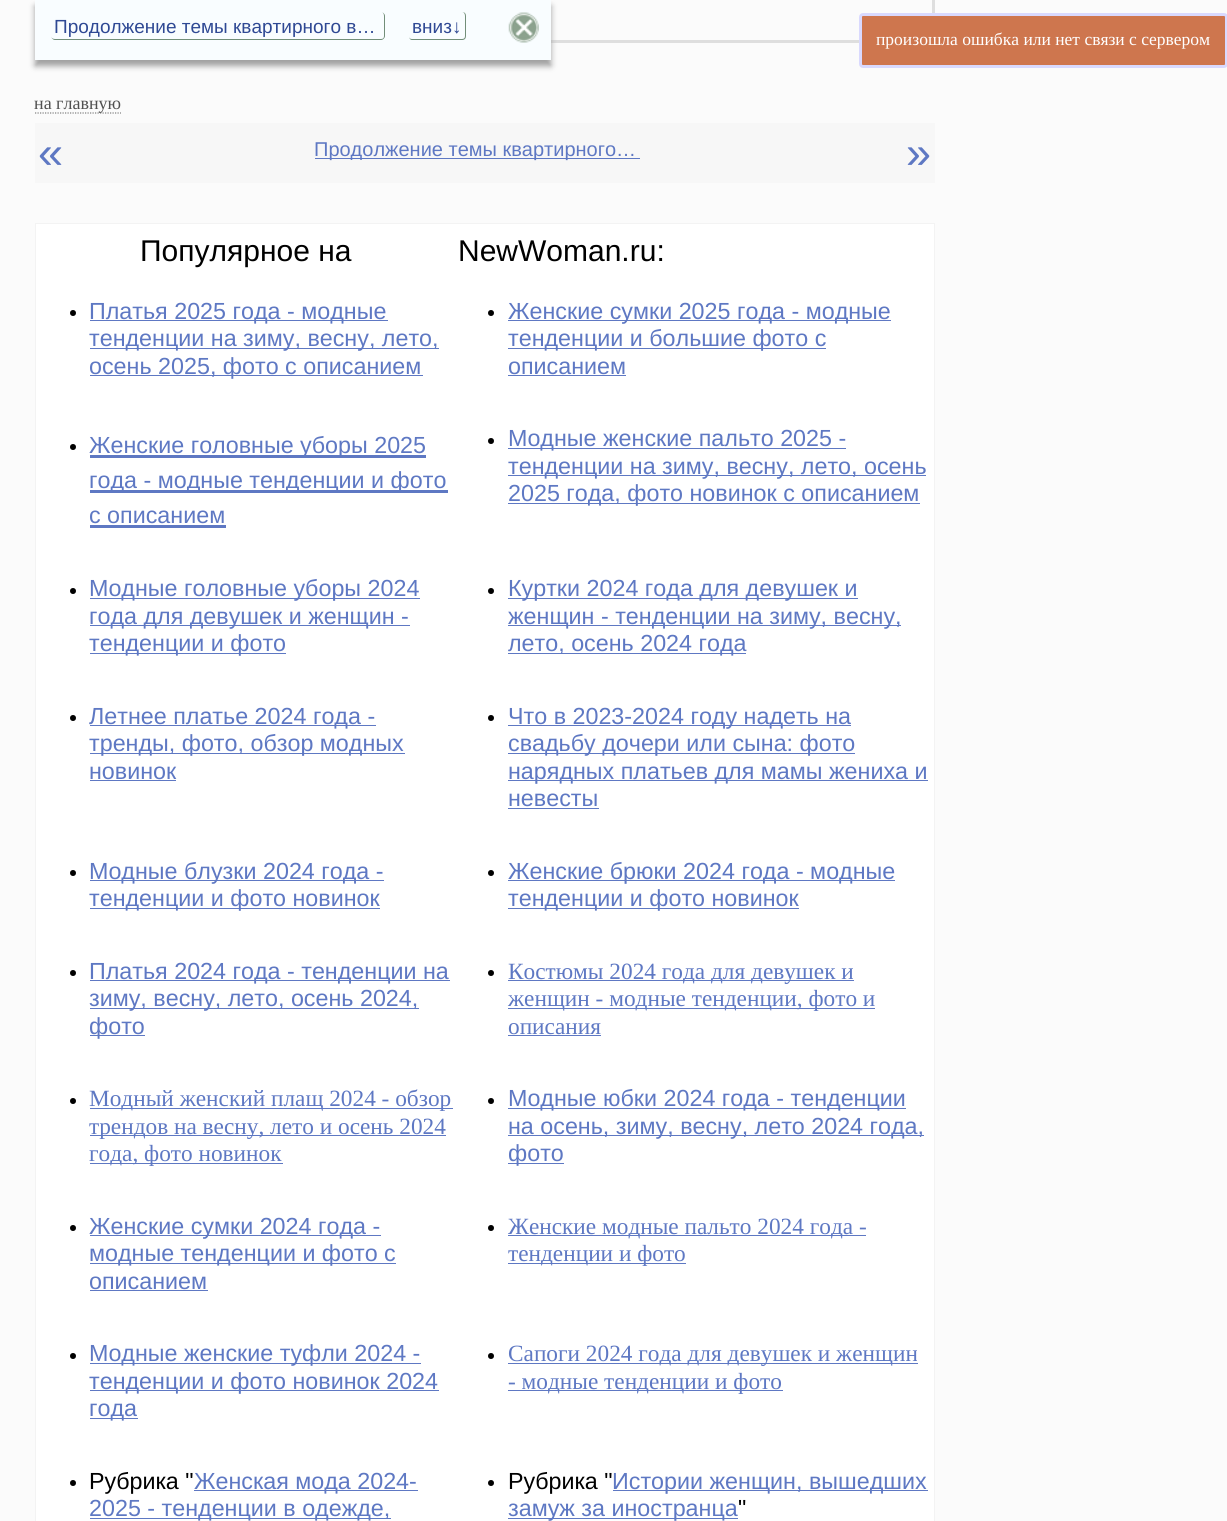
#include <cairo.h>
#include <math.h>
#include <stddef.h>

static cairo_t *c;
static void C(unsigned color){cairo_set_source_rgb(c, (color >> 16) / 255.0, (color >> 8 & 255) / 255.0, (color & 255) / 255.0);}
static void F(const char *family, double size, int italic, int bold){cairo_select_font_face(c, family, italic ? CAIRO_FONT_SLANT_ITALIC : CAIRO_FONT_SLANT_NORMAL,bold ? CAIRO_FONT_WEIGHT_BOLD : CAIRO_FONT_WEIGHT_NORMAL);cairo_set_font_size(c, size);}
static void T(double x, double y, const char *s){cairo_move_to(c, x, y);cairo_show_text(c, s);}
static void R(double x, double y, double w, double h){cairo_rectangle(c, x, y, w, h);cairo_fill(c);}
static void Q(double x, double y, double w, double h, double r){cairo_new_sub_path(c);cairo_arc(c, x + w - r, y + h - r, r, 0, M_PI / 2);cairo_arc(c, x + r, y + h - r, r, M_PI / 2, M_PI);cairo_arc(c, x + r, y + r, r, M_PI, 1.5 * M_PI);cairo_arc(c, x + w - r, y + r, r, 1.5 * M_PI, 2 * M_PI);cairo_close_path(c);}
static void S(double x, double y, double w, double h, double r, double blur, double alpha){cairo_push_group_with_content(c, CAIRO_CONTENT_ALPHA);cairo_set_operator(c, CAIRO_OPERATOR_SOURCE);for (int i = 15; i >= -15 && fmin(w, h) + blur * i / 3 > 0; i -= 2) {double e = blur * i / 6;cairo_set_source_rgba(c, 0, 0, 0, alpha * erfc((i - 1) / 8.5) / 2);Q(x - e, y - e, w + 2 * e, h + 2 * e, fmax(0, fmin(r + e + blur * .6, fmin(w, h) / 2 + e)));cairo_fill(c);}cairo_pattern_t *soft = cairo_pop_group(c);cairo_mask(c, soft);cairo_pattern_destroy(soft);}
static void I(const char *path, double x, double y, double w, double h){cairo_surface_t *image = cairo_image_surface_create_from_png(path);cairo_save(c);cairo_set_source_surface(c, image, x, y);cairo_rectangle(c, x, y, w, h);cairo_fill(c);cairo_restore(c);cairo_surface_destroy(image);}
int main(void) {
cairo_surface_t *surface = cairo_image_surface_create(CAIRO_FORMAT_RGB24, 1227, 1521);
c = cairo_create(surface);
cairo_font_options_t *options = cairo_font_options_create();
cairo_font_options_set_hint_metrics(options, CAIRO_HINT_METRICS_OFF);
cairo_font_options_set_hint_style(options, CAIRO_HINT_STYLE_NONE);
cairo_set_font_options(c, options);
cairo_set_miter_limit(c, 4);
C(0xfbfbfb);
cairo_paint(c);
cairo_rectangle(c,42.5,-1.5,891,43);
C(0xdedede);
cairo_set_line_width(c,3);
cairo_stroke(c);
C(0xa0a0a0);
S(35,6,516,60,0,3,1);
C(0xf9fdff);
R(35,0,516,60);
C(0x728e79);
cairo_set_fill_rule(c,CAIRO_FILL_RULE_EVEN_ODD);
cairo_new_path(c);
cairo_move_to(c,55,12);
cairo_line_to(c,381,12);
cairo_curve_to(c,383,12,385,14,385,16);
cairo_line_to(c,385,36);
cairo_curve_to(c,385,38,383,40,381,40);
cairo_line_to(c,55,40);
cairo_curve_to(c,53,40,51,38,51,36);
cairo_line_to(c,51,16);
cairo_curve_to(c,51,14,53,12,55,12);
cairo_close_path(c);
cairo_move_to(c,55,12);
cairo_line_to(c,381,12);
cairo_curve_to(c,383,12,384,14,384,16);
cairo_line_to(c,384,36);
cairo_curve_to(c,384,38,383,39,381,39);
cairo_line_to(c,55,39);
cairo_curve_to(c,53,39,51,38,51,36);
cairo_line_to(c,51,16);
cairo_curve_to(c,51,14,53,12,55,12);
cairo_close_path(c);
cairo_fill(c);
F("Liberation Sans",19,0,0);
C(0x2f4994);
T(54,33,"Продолжение темы квартирного в…");
C(0x728e79);
cairo_new_path(c);
cairo_move_to(c,412,12);
cairo_line_to(c,462,12);
cairo_curve_to(c,465,12,466,14,466,16);
cairo_line_to(c,466,36);
cairo_curve_to(c,466,38,465,40,462,40);
cairo_line_to(c,412,40);
cairo_curve_to(c,410,40,409,38,409,36);
cairo_line_to(c,409,16);
cairo_curve_to(c,409,14,410,12,412,12);
cairo_close_path(c);
cairo_move_to(c,412,12);
cairo_line_to(c,462,12);
cairo_curve_to(c,464,12,465,14,465,16);
cairo_line_to(c,465,36);
cairo_curve_to(c,465,38,464,39,462,39);
cairo_line_to(c,412,39);
cairo_curve_to(c,410,39,409,38,409,36);
cairo_line_to(c,409,16);
cairo_curve_to(c,409,14,410,12,412,12);
cairo_close_path(c);
cairo_fill(c);
C(0x2f4994);
T(412,33,"вниз↓");
I("1.png",508,12,31,31);
C(0xce764e);
Q(860.5,14.5,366,52,2.5);
cairo_fill_preserve(c);
C(0xd9d9fe);
cairo_stroke(c);
F("Liberation Serif",17.5,0,0);
C(0xffffff);
T(876,45,"произошла ошибка или нет связи с сервером");
cairo_new_path(c);
cairo_move_to(c,35,113);
cairo_line_to(c,121,113);
C(0x808080);
cairo_set_line_width(c,1.2);
cairo_set_dash(c,(double[]){1.25,1.25},2,0);
cairo_stroke(c);
F("Liberation Serif",18,0,0);
C(0x505050);
T(34,109,"на главную");
C(0xf7f7f7);
R(35,123,900,60);
F("Liberation Sans",45,0,0);
C(0x5e78c3);
T(38,168,"«");
R(315,158,325,1);
F("Liberation Sans",20,0,0);
T(314,156,"Продолжение темы квартирного…");
F("Liberation Sans",45,0,0);
T(906,168,"»");
C(0xffffff);
cairo_rectangle(c,35.5,223.5,899,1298);
cairo_fill_preserve(c);
C(0xf3f3f3);
cairo_set_line_width(c,1);
cairo_set_dash(c,NULL,0,0);
cairo_stroke(c);
F("Liberation Sans",30,0,0);
C(0x000000);
T(140,261,"Популярное на");
T(458,261,"NewWoman.ru:");
cairo_new_path(c);
cairo_arc(c,73,313,3,0,2 * M_PI);
cairo_fill(c);
C(0x5e78c3);
R(90,320,298,1);
F("Liberation Sans",23.3,0,0);
T(89,319,"Платья 2025 года - модные");
R(90,348,349,1);
T(89,346,"тенденции на зиму, весну, лето,");
R(90,375,333,1);
T(89,374,"осень 2025, фото с описанием");
C(0x000000);
cairo_new_path(c);
cairo_arc(c,491,313,3,0,2 * M_PI);
cairo_fill(c);
C(0x5e78c3);
R(508,320,383,1);
T(508,319,"Женские сумки 2025 года - модные");
R(508,348,318,1);
T(508,346,"тенденции и большие фото с");
T(508,374,"описанием");
R(508,375,118,1);
C(0x000000);
cairo_new_path(c);
cairo_arc(c,73,447,3,0,2 * M_PI);
cairo_fill(c);
C(0x5e78c3);
R(90,455,336,3);
T(89,453,"Женские головные уборы 2025");
R(90,490,358,3);
T(89,488,"года - модные тенденции и фото");
T(89,523,"с описанием");
R(90,525,136,3);
C(0x000000);
cairo_new_path(c);
cairo_arc(c,491,441,3,0,2 * M_PI);
cairo_fill(c);
C(0x5e78c3);
R(508,448,338,1);
T(508,446,"Модные женские пальто 2025 -");
R(508,475,418,1);
T(508,474,"тенденции на зиму, весну, лето, осень");
R(508,503,412,1);
T(508,501,"2025 года, фото новинок с описанием");
C(0x000000);
cairo_new_path(c);
cairo_arc(c,73,591,3,0,2 * M_PI);
cairo_fill(c);
C(0x5e78c3);
R(90,598,330,1);
T(89,596,"Модные головные уборы 2024");
R(90,625,320,1);
T(89,624,"года для девушек и женщин -");
R(90,653,196,1);
T(89,651,"тенденции и фото");
C(0x000000);
cairo_new_path(c);
cairo_arc(c,491,591,3,0,2 * M_PI);
cairo_fill(c);
C(0x5e78c3);
R(508,598,350,1);
T(508,596,"Куртки 2024 года для девушек и");
R(508,625,393,1);
T(508,624,"женщин - тенденции на зиму, весну,");
R(508,653,238,1);
T(508,651,"лето, осень 2024 года");
C(0x000000);
cairo_new_path(c);
cairo_arc(c,73,718,3,0,2 * M_PI);
cairo_fill(c);
C(0x5e78c3);
R(90,725,286,1);
T(89,724,"Летнее платье 2024 года -");
R(90,753,315,1);
T(89,751,"тренды, фото, обзор модных");
T(89,779,"новинок");
R(90,780,86,1);
C(0x000000);
cairo_new_path(c);
cairo_arc(c,491,718,3,0,2 * M_PI);
cairo_fill(c);
C(0x5e78c3);
R(508,725,343,1);
T(508,724,"Что в 2023-2024 году надеть на");
R(508,753,347,1);
T(508,751,"свадьбу дочери или сына: фото");
R(508,780,420,1);
T(508,779,"нарядных платьев для мамы жениха и");
T(508,806,"невесты");
R(508,808,91,1);
C(0x000000);
cairo_new_path(c);
cairo_arc(c,73,873,3,0,2 * M_PI);
cairo_fill(c);
C(0x5e78c3);
R(90,880,294,1);
T(89,879,"Модные блузки 2024 года -");
R(90,908,290,1);
T(89,906,"тенденции и фото новинок");
C(0x000000);
cairo_new_path(c);
cairo_arc(c,491,873,3,0,2 * M_PI);
cairo_fill(c);
C(0x5e78c3);
R(508,880,387,1);
T(508,879,"Женские брюки 2024 года - модные");
R(508,908,291,1);
T(508,906,"тенденции и фото новинок");
C(0x000000);
cairo_new_path(c);
cairo_arc(c,73,973,3,0,2 * M_PI);
cairo_fill(c);
C(0x5e78c3);
R(90,980,360,1);
T(89,979,"Платья 2024 года - тенденции на");
R(90,1008,329,1);
T(89,1006,"зиму, весну, лето, осень 2024,");
R(90,1035,55,1);
T(89,1034,"фото");
C(0x000000);
cairo_new_path(c);
cairo_arc(c,491,973,3,0,2 * M_PI);
cairo_fill(c);
C(0x5e78c3);
R(508,980,346,1);
F("Liberation Serif",23.3,0,0);
T(508,979,"Костюмы 2024 года для девушек и");
R(508,1008,367,1);
T(508,1006,"женщин - модные тенденции, фото и");
T(508,1034,"описания");
R(508,1035,93,1);
C(0x000000);
cairo_new_path(c);
cairo_arc(c,73,1101,3,0,2 * M_PI);
cairo_fill(c);
C(0x5e78c3);
R(90,1108,363,1);
T(89,1106,"Модный женский плащ 2024 - обзор");
R(90,1135,356,1);
T(89,1134,"трендов на весну, лето и осень 2024");
R(90,1163,193,1);
T(89,1161,"года, фото новинок");
C(0x000000);
cairo_new_path(c);
cairo_arc(c,491,1101,3,0,2 * M_PI);
cairo_fill(c);
C(0x5e78c3);
R(508,1108,398,1);
F("Liberation Sans",23.3,0,0);
T(508,1106,"Модные юбки 2024 года - тенденции");
R(508,1135,416,1);
T(508,1134,"на осень, зиму, весну, лето 2024 года,");
R(508,1163,56,1);
T(508,1161,"фото");
C(0x000000);
cairo_new_path(c);
cairo_arc(c,73,1228,3,0,2 * M_PI);
cairo_fill(c);
C(0x5e78c3);
R(90,1235,291,1);
T(89,1234,"Женские сумки 2024 года -");
R(90,1263,306,1);
T(89,1261,"модные тенденции и фото с");
T(89,1289,"описанием");
R(90,1290,118,1);
C(0x000000);
cairo_new_path(c);
cairo_arc(c,491,1228,3,0,2 * M_PI);
cairo_fill(c);
C(0x5e78c3);
R(508,1235,358,1);
F("Liberation Serif",23.3,0,0);
T(508,1234,"Женские модные пальто 2024 года -");
R(508,1263,178,1);
T(508,1261,"тенденции и фото");
C(0x000000);
cairo_new_path(c);
cairo_arc(c,73,1356,3,0,2 * M_PI);
cairo_fill(c);
C(0x5e78c3);
R(90,1363,331,1);
F("Liberation Sans",23.3,0,0);
T(89,1361,"Модные женские туфли 2024 -");
R(90,1390,349,1);
T(89,1389,"тенденции и фото новинок 2024");
R(90,1418,48,1);
T(89,1416,"года");
C(0x000000);
cairo_new_path(c);
cairo_arc(c,491,1356,3,0,2 * M_PI);
cairo_fill(c);
C(0x5e78c3);
R(508,1363,410,1);
F("Liberation Serif",23.3,0,0);
T(508,1361,"Сапоги 2024 года для девушек и женщин");
R(508,1390,275,1);
T(508,1389,"- модные тенденции и фото");
C(0x000000);
cairo_new_path(c);
cairo_arc(c,73,1483,3,0,2 * M_PI);
cairo_fill(c);
F("Liberation Sans",23.3,0,0);
T(89,1489,"Рубрика \"");
C(0x5e78c3);
R(194,1490,224,1);
T(194,1489,"Женская мода 2024-");
R(90,1518,301,1);
T(89,1516,"2025 - тенденции в одежде,");
C(0x000000);
cairo_new_path(c);
cairo_arc(c,491,1483,3,0,2 * M_PI);
cairo_fill(c);
T(508,1489,"Рубрика \"");
C(0x5e78c3);
R(613,1490,315,1);
T(612,1489,"Истории женщин, вышедших");
C(0x000000);
T(738,1516,"\"");
C(0x5e78c3);
R(508,1518,230,1);
T(508,1516,"замуж за иностранца");
cairo_surface_write_to_png(surface, "o.png");
cairo_font_options_destroy(options);
cairo_destroy(c);
cairo_surface_destroy(surface);
return 0;
}
